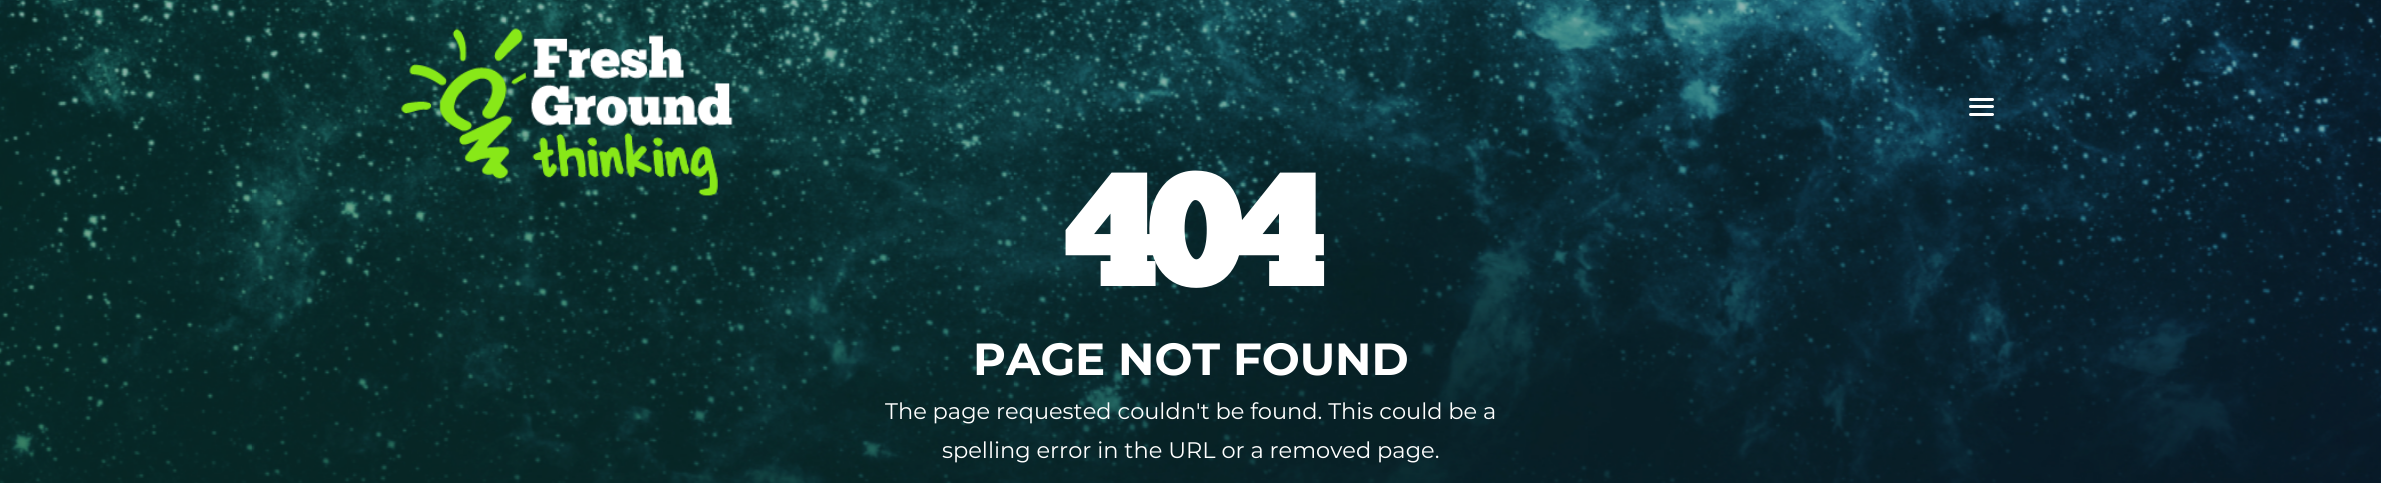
#include <cairo.h>
#include <math.h>
#include <stddef.h>

static cairo_t *c;
static void C(unsigned color){cairo_set_source_rgb(c, (color >> 16) / 255.0, (color >> 8 & 255) / 255.0, (color & 255) / 255.0);}
static void F(const char *family, double size, int italic, int bold){cairo_select_font_face(c, family, italic ? CAIRO_FONT_SLANT_ITALIC : CAIRO_FONT_SLANT_NORMAL,bold ? CAIRO_FONT_WEIGHT_BOLD : CAIRO_FONT_WEIGHT_NORMAL);cairo_set_font_size(c, size);}
static void T(double x, double y, const char *s){cairo_move_to(c, x, y);cairo_show_text(c, s);}
static void L(double x, double y, const char *s, double letter, double word){cairo_move_to(c, x, y);while (*s) {char ch[5] = {0};int n = 0;do ch[n++] = *s++; while ((*s & 0xC0) == 0x80);cairo_show_text(c, ch);cairo_rel_move_to(c, letter + word * (*ch == ' '), 0);}}
static void Q(double x, double y, double w, double h, double r){cairo_new_sub_path(c);cairo_arc(c, x + w - r, y + h - r, r, 0, M_PI / 2);cairo_arc(c, x + r, y + h - r, r, M_PI / 2, M_PI);cairo_arc(c, x + r, y + r, r, M_PI, 1.5 * M_PI);cairo_arc(c, x + w - r, y + r, r, 1.5 * M_PI, 2 * M_PI);cairo_close_path(c);}
static void I(const char *path, double x, double y, double w, double h){cairo_surface_t *image = cairo_image_surface_create_from_png(path);cairo_save(c);cairo_set_source_surface(c, image, x, y);cairo_rectangle(c, x, y, w, h);cairo_fill(c);cairo_restore(c);cairo_surface_destroy(image);}
int main(void) {
cairo_surface_t *surface = cairo_image_surface_create(CAIRO_FORMAT_RGB24, 2381, 483);
c = cairo_create(surface);
cairo_font_options_t *options = cairo_font_options_create();
cairo_font_options_set_hint_metrics(options, CAIRO_HINT_METRICS_OFF);
cairo_font_options_set_hint_style(options, CAIRO_HINT_STYLE_NONE);
cairo_set_font_options(c, options);
cairo_set_miter_limit(c, 4);
C(0xffffff);
cairo_paint(c);
I("2.png",0,0,2381,483);
I("1.png",401,28,332,168);
C(0xffffff);
Q(1969,105,25,3,1.5);
cairo_fill(c);
Q(1969,98,25,3,1.5);
cairo_fill(c);
Q(1969,113,25,3,1.5);
cairo_fill(c);
F("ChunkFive",156,0,1);
L(1064,286,"404",-8,0);
F("Montserrat",45,0,1);
T(973,375,"PAGE NOT FOUND");
F("Montserrat",22.5,0,0);
T(885,419,"The page requested couldn't be found. This could be a");
T(942,458,"spelling error in the URL or a removed page.");
cairo_surface_write_to_png(surface, "o.png");
cairo_font_options_destroy(options);
cairo_destroy(c);
cairo_surface_destroy(surface);
return 0;
}
